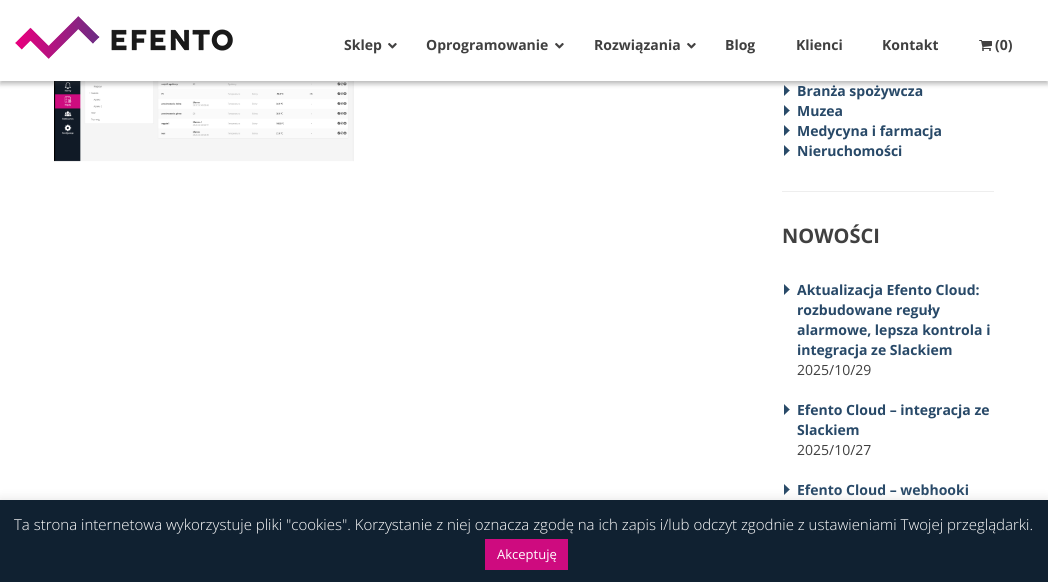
#include <cairo.h>
#include <math.h>
#include <stddef.h>

static cairo_t *c;
static void C(unsigned color){cairo_set_source_rgb(c, (color >> 16) / 255.0, (color >> 8 & 255) / 255.0, (color & 255) / 255.0);}
static void F(const char *family, double size, int italic, int bold){cairo_select_font_face(c, family, italic ? CAIRO_FONT_SLANT_ITALIC : CAIRO_FONT_SLANT_NORMAL,bold ? CAIRO_FONT_WEIGHT_BOLD : CAIRO_FONT_WEIGHT_NORMAL);cairo_set_font_size(c, size);}
static void T(double x, double y, const char *s){cairo_move_to(c, x, y);cairo_show_text(c, s);}
static void R(double x, double y, double w, double h){cairo_rectangle(c, x, y, w, h);cairo_fill(c);}
static void Q(double x, double y, double w, double h, double r){cairo_new_sub_path(c);cairo_arc(c, x + w - r, y + h - r, r, 0, M_PI / 2);cairo_arc(c, x + r, y + h - r, r, M_PI / 2, M_PI);cairo_arc(c, x + r, y + r, r, M_PI, 1.5 * M_PI);cairo_arc(c, x + w - r, y + r, r, 1.5 * M_PI, 2 * M_PI);cairo_close_path(c);}
static void S(double x, double y, double w, double h, double r, double blur, double alpha){cairo_push_group_with_content(c, CAIRO_CONTENT_ALPHA);cairo_set_operator(c, CAIRO_OPERATOR_SOURCE);for (int i = 15; i >= -15 && fmin(w, h) + blur * i / 3 > 0; i -= 2) {double e = blur * i / 6;cairo_set_source_rgba(c, 0, 0, 0, alpha * erfc((i - 1) / 8.5) / 2);Q(x - e, y - e, w + 2 * e, h + 2 * e, fmax(0, fmin(r + e + blur * .6, fmin(w, h) / 2 + e)));cairo_fill(c);}cairo_pattern_t *soft = cairo_pop_group(c);cairo_mask(c, soft);cairo_pattern_destroy(soft);}
static void I(const char *path, double x, double y, double w, double h){cairo_surface_t *image = cairo_image_surface_create_from_png(path);cairo_save(c);cairo_set_source_surface(c, image, x, y);cairo_rectangle(c, x, y, w, h);cairo_fill(c);cairo_restore(c);cairo_surface_destroy(image);}
int main(void) {
cairo_surface_t *surface = cairo_image_surface_create(CAIRO_FORMAT_RGB24, 1048, 582);
c = cairo_create(surface);
cairo_font_options_t *options = cairo_font_options_create();
cairo_font_options_set_hint_metrics(options, CAIRO_HINT_METRICS_OFF);
cairo_font_options_set_hint_style(options, CAIRO_HINT_STYLE_NONE);
cairo_set_font_options(c, options);
cairo_set_miter_limit(c, 4);
C(0xffffff);
cairo_paint(c);
I("4.png",54,81,300,81);
I("5.png",784,85,6,11);
C(0x323232);
S(0,3,1048,81,0,2.5,.34);
C(0xffffff);
R(0,0,1048,81);
I("1.png",15,16,218,43);
F("Open Sans",14,0,1);
C(0x404040);
T(344,50,"Sklep");
I("2.png",388,43,9,6);
T(426,50,"Oprogramowanie");
I("2.png",555,43,9,6);
T(594,50,"Rozwiązania");
I("2.png",687,43,9,6);
T(725,50,"Blog");
T(796,50,"Klienci");
T(882,50,"Kontakt");
I("3.png",979,40,13,11);
T(995,50,"(0)");
C(0x284968);
T(797,96,"Branża spożywcza");
I("5.png",784,105,6,11);
T(797,116,"Muzea");
I("5.png",784,125,6,11);
T(797,136,"Medycyna i farmacja");
I("5.png",784,145,6,11);
T(797,156,"Nieruchomości");
C(0xeeeeee);
R(782,191,212,1);
F("Open Sans",20,0,1);
C(0x404040);
T(782,243,"NOWOŚCI");
I("5.png",784,284,6,11);
F("Open Sans",14,0,1);
C(0x284968);
T(797,295,"Aktualizacja Efento Cloud:");
T(797,315,"rozbudowane reguły");
T(797,335,"alarmowe, lepsza kontrola i");
T(797,355,"integracja ze Slackiem");
F("Open Sans",14,0,0);
C(0x404040);
T(797,375,"2025/10/29");
I("5.png",784,404,6,11);
F("Open Sans",14,0,1);
C(0x284968);
T(797,415,"Efento Cloud – integracja ze");
T(797,435,"Slackiem");
F("Open Sans",14,0,0);
C(0x404040);
T(797,455,"2025/10/27");
I("5.png",784,484,6,11);
F("Open Sans",14,0,1);
C(0x284968);
T(797,495,"Efento Cloud – webhooki");
C(0xacabab);
S(0,499,1048,82,0,5,.3);
C(0x102131);
R(0,500,1048,82);
F("Open Sans Light",15,0,0);
C(0xffffff);
T(14,530,"Ta strona internetowa wykorzystuje pliki \"cookies\". Korzystanie z niej oznacza zgodę na ich zapis i/lub odczyt zgodnie z ustawieniami Twojej przeglądarki.");
C(0xce0b7f);
R(485,539,83,31);
F("Open Sans",13,0,0);
C(0xffffff);
T(497,559,"Akceptuję");
cairo_surface_write_to_png(surface, "o.png");
cairo_font_options_destroy(options);
cairo_destroy(c);
cairo_surface_destroy(surface);
return 0;
}
